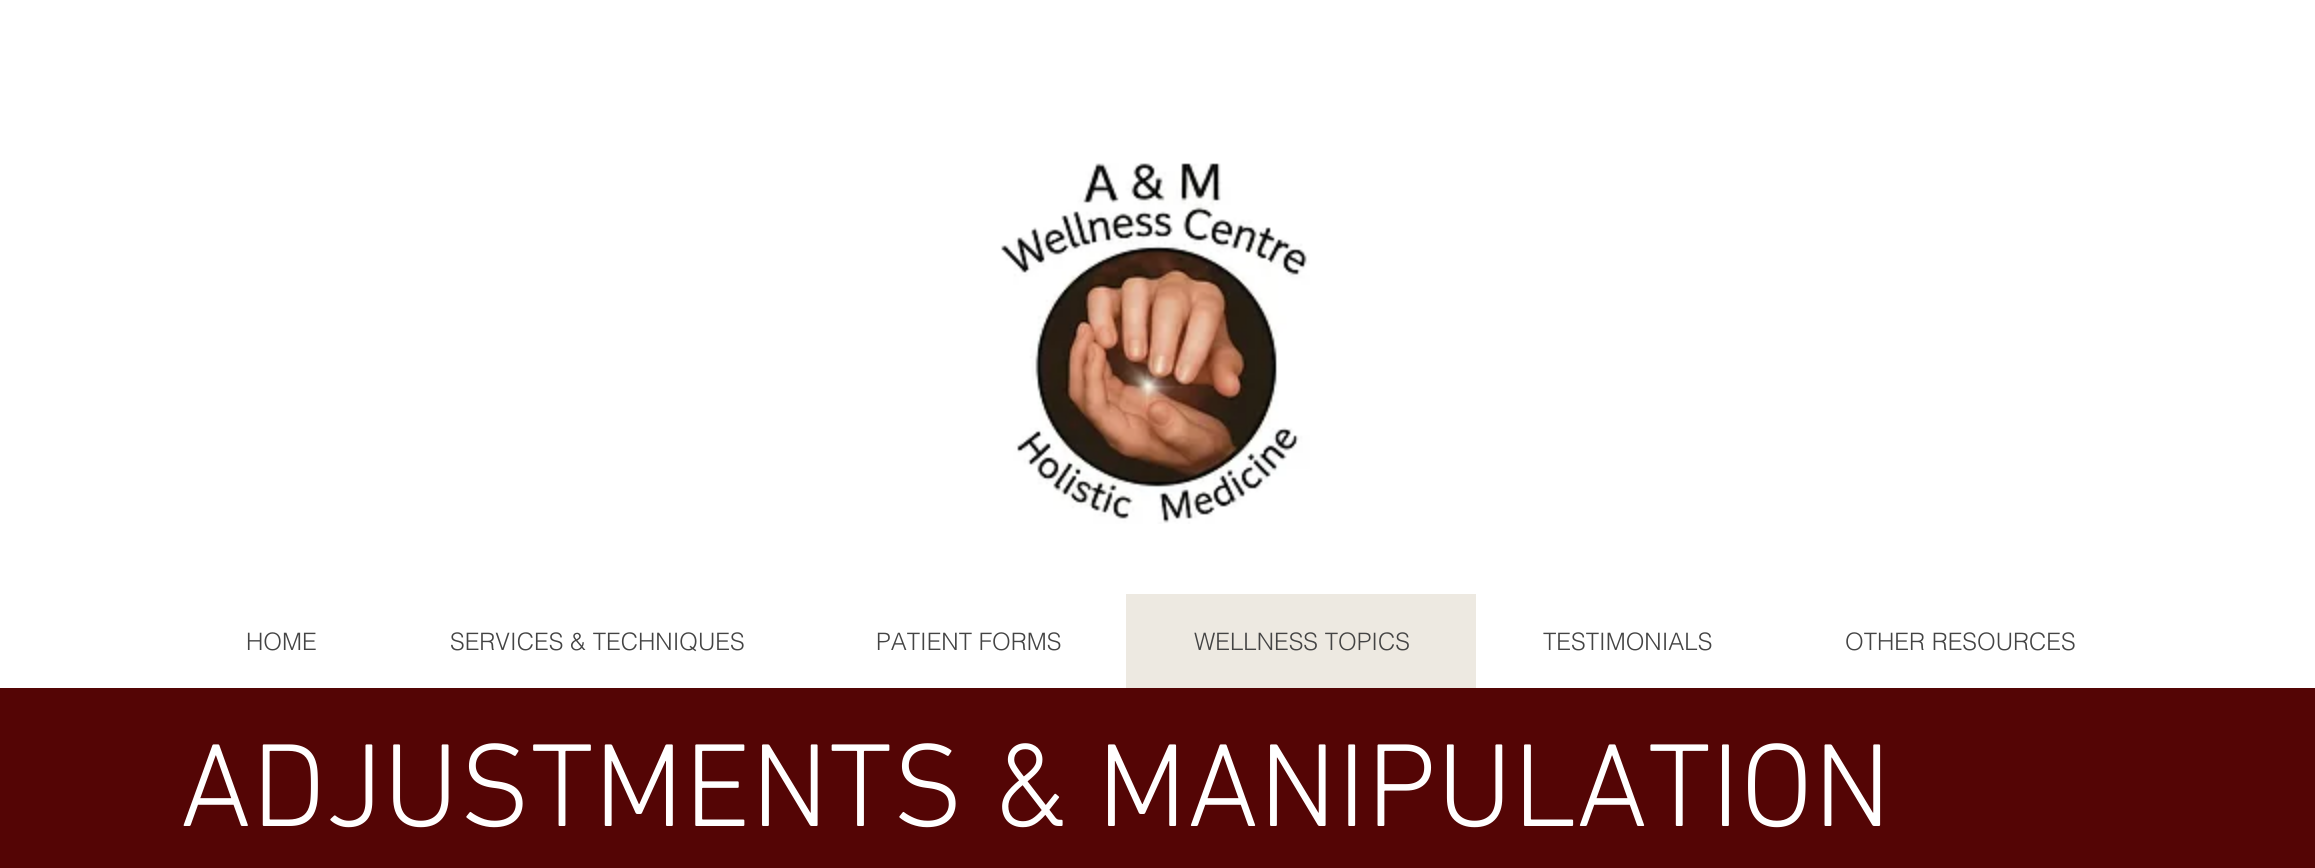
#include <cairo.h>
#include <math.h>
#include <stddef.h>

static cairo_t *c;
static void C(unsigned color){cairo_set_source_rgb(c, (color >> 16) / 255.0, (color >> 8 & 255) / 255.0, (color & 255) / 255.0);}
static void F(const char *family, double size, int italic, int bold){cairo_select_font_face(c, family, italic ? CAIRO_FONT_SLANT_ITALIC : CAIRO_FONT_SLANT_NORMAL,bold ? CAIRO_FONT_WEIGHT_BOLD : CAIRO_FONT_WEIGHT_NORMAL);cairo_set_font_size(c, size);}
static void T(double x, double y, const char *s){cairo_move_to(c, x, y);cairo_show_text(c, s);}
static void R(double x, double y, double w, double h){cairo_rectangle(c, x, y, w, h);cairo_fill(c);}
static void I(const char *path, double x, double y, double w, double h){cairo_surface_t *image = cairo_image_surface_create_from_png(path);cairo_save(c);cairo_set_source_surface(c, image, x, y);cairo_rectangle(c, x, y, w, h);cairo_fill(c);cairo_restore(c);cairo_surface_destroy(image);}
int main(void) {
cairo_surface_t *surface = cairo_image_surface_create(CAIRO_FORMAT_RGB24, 2315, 868);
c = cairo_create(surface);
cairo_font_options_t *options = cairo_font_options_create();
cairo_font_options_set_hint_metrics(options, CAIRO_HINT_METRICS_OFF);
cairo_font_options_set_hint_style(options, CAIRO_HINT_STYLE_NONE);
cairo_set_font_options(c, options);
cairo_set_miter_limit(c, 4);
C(0xffffff);
cairo_paint(c);
I("1.png",1000,163,310,361);
F("helvetica Light",24,0,0);
C(0x444444);
T(246,650,"HOME");
T(450,650,"SERVICES & TECHNIQUES");
T(876,650,"PATIENT FORMS");
C(0xede9e1);
R(1126,594,350,94);
C(0x444444);
T(1194,650,"WELLNESS TOPICS");
T(1543,650,"TESTIMONIALS");
T(1845,650,"OTHER RESOURCES");
C(0x540505);
R(0,688,2315,180);
F("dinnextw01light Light",120,0,0);
C(0xffffff);
T(180,826,"ADJUSTMENTS & MANIPULATION");
cairo_surface_write_to_png(surface, "o.png");
cairo_font_options_destroy(options);
cairo_destroy(c);
cairo_surface_destroy(surface);
return 0;
}
